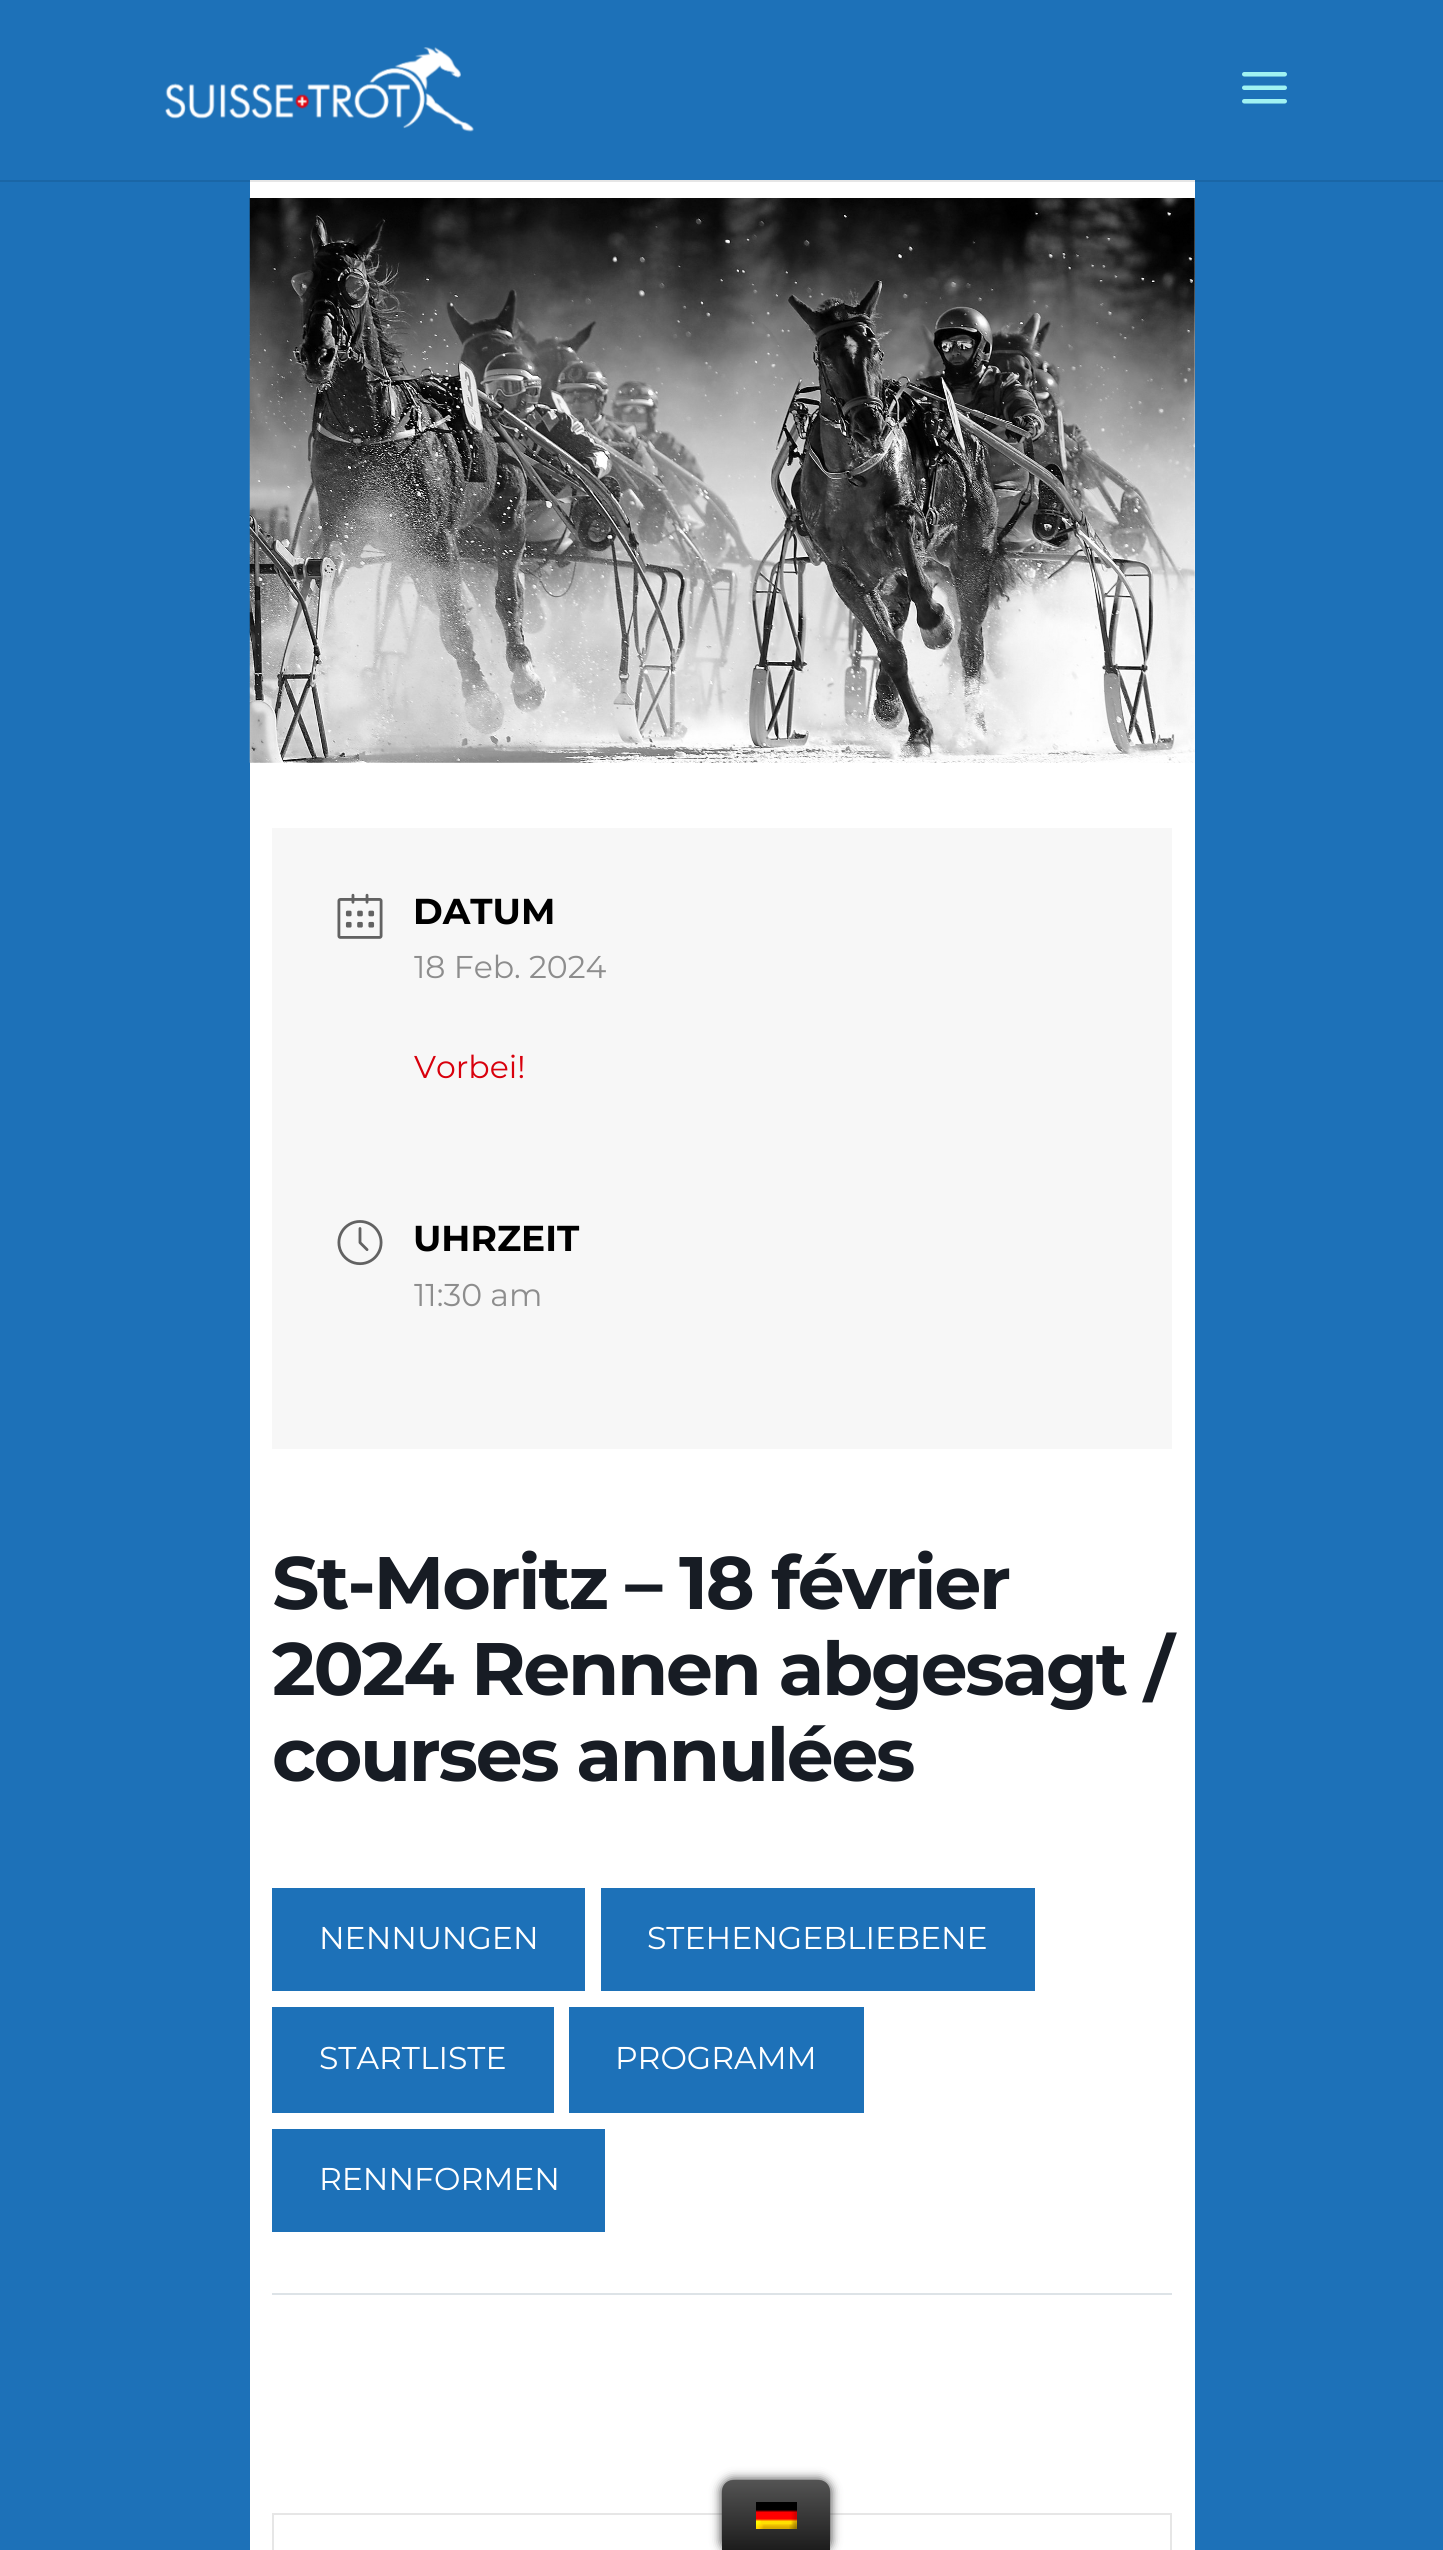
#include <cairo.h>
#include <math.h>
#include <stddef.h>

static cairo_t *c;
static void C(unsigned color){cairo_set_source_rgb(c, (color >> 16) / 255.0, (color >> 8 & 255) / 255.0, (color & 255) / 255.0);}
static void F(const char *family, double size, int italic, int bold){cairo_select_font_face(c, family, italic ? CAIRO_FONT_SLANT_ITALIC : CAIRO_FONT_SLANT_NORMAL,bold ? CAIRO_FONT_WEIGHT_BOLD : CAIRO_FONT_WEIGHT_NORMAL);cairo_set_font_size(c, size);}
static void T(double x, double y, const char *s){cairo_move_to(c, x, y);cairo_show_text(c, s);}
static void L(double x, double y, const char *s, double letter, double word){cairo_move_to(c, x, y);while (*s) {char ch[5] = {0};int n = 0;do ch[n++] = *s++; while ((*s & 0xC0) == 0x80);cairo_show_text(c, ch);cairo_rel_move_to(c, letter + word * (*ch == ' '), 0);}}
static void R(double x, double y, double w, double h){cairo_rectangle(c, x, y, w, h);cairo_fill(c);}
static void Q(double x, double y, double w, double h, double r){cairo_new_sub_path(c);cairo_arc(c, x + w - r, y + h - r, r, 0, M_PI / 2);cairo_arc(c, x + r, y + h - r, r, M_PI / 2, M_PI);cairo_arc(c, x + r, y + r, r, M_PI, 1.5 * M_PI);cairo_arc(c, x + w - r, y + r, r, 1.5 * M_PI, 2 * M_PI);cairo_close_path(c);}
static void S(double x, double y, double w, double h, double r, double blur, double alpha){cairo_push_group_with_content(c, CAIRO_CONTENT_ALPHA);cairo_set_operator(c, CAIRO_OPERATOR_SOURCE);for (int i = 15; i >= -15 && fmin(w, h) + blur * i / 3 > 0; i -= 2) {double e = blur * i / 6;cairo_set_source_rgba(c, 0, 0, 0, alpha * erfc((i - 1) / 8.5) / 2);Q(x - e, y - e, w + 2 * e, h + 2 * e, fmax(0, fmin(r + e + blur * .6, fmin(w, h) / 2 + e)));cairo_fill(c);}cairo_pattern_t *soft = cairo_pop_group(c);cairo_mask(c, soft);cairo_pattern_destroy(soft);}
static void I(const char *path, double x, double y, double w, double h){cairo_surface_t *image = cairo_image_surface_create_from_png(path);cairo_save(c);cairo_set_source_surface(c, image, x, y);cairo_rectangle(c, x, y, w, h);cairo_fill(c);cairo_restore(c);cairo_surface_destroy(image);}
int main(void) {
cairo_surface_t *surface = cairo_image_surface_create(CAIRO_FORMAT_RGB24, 1443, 2550);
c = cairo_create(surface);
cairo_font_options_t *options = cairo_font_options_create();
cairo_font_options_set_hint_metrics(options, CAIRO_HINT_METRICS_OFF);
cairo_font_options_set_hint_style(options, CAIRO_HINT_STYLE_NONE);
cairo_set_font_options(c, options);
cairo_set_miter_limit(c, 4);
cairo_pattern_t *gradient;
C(0x1d71b8);
cairo_paint(c);
C(0xffffff);
R(250,180,945,2370);
cairo_set_source_rgba(c,0,0,0,0.1);
cairo_new_path(c);
cairo_move_to(c,0,180);
cairo_line_to(c,0,182);
cairo_line_to(c,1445,182);
cairo_line_to(c,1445,2);
cairo_line_to(c,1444,2);
cairo_line_to(c,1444,180);
cairo_close_path(c);
cairo_fill(c);
I("1.png",165,47,309,85);
I("2.png",1242,72,45,32);
I("3.png",249,198,946,565);
C(0xf7f7f7);
R(272,828,900,621);
I("4.png",337,893,46,46);
F("Montserrat",36,0,1);
C(0x000000);
T(413,924,"DATUM");
F("Montserrat",31.5,0,0);
C(0x8d8d8d);
T(414,978,"18 Feb. 2024");
C(0xd8000c);
T(414,1078,"Vorbei!");
I("5.png",337,1220,46,46);
F("Montserrat",36,0,1);
C(0x000000);
T(413,1251,"UHRZEIT");
F("Montserrat",31.5,0,0);
C(0x8d8d8d);
T(414,1306,"11:30 am");
F("Montserrat",74.25,0,1);
C(0x171c24);
L(272,1609,"St-Moritz – 18 février",-2.25,0);
L(272,1695,"2024 Rennen abgesagt /",-2.25,0);
L(272,1781,"courses annulées",-2.25,0);
C(0x1d71b8);
R(272,1888,313,103);
F("Montserrat",31.5,0,0);
C(0xffffff);
T(319,1949,"NENNUNGEN");
C(0x1d71b8);
R(601,1888,434,103);
C(0xffffff);
T(647,1949,"STEHENGEBLIEBENE");
C(0x1d71b8);
R(272,2007,282,106);
C(0xffffff);
T(319,2069,"STARTLISTE");
C(0x1d71b8);
R(569,2007,295,106);
C(0xffffff);
T(615,2069,"PROGRAMM");
C(0x1d71b8);
R(272,2129,333,103);
C(0xffffff);
T(319,2190,"RENNFORMEN");
C(0xdde3e7);
R(272,2293,900,2);
cairo_rectangle(c,273,2514,898,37);
C(0xe6e6e6);
cairo_stroke(c);
C(0x212121);
S(722,2480,108,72,11,5.5,1);
gradient = cairo_pattern_create_linear(776,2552,776,2480);
cairo_pattern_add_color_stop_rgba(gradient,0,0.106,0.106,0.106,1);
cairo_pattern_add_color_stop_rgba(gradient,1,0.329,0.329,0.329,1);
cairo_set_source(c,gradient);
cairo_pattern_destroy(gradient);
cairo_new_path(c);
cairo_move_to(c,733,2480);
cairo_line_to(c,819,2480);
cairo_curve_to(c,825,2480,830,2485,830,2491);
cairo_line_to(c,830,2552);
cairo_line_to(c,722,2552);
cairo_line_to(c,722,2491);
cairo_curve_to(c,722,2485,727,2480,733,2480);
cairo_close_path(c);
cairo_fill(c);
I("6.png",756,2502,41,27);
cairo_surface_write_to_png(surface, "o.png");
cairo_font_options_destroy(options);
cairo_destroy(c);
cairo_surface_destroy(surface);
return 0;
}
